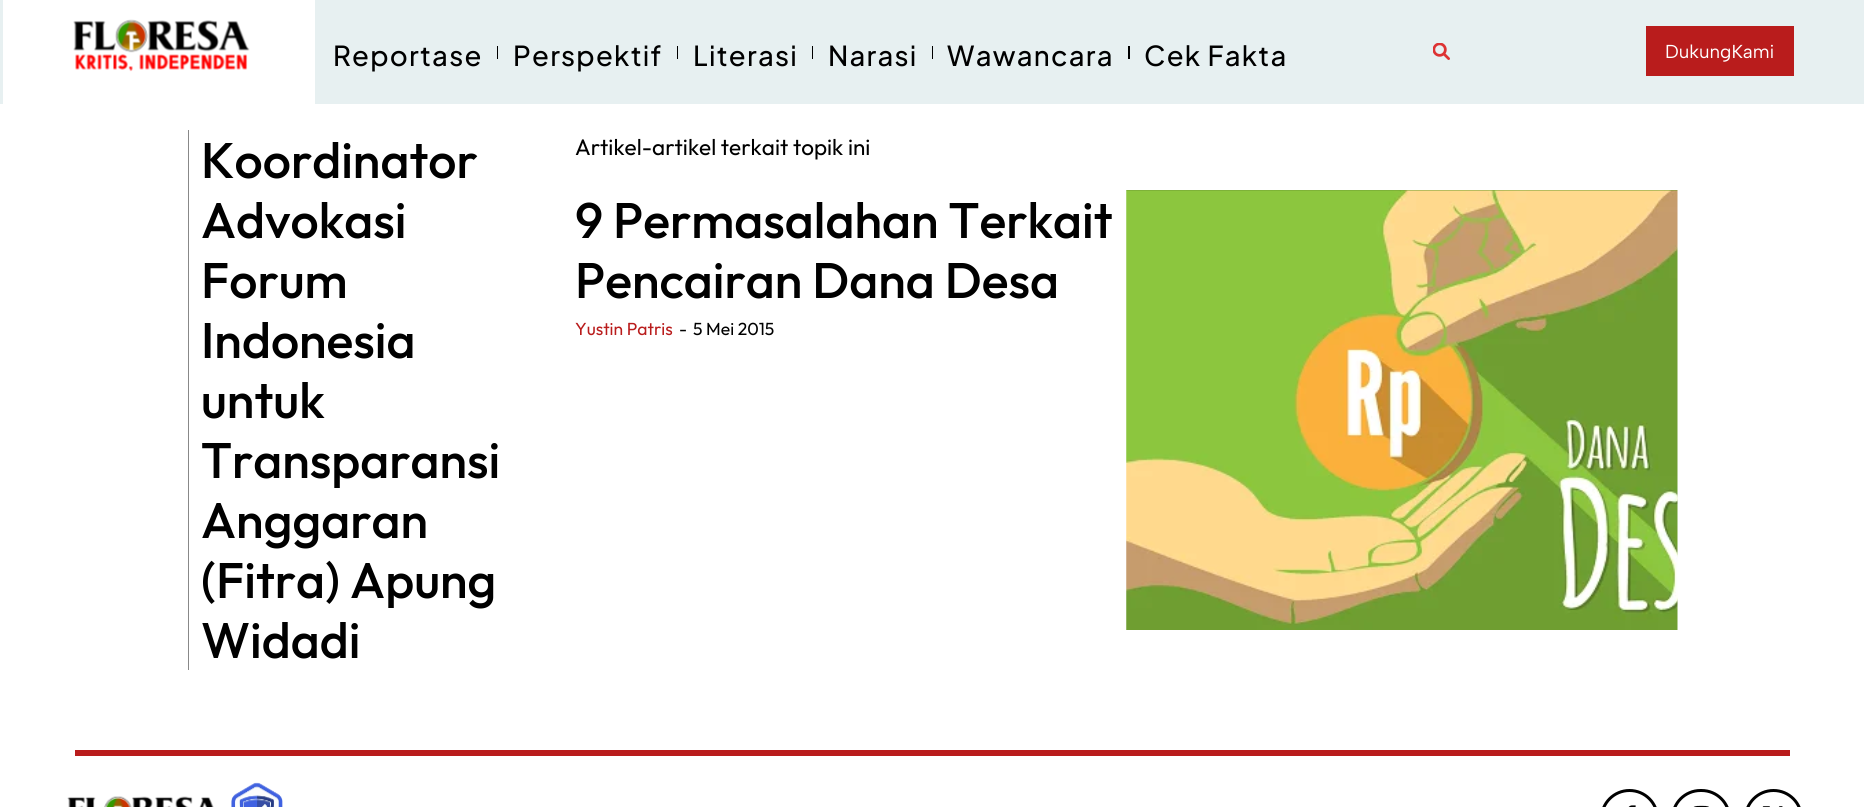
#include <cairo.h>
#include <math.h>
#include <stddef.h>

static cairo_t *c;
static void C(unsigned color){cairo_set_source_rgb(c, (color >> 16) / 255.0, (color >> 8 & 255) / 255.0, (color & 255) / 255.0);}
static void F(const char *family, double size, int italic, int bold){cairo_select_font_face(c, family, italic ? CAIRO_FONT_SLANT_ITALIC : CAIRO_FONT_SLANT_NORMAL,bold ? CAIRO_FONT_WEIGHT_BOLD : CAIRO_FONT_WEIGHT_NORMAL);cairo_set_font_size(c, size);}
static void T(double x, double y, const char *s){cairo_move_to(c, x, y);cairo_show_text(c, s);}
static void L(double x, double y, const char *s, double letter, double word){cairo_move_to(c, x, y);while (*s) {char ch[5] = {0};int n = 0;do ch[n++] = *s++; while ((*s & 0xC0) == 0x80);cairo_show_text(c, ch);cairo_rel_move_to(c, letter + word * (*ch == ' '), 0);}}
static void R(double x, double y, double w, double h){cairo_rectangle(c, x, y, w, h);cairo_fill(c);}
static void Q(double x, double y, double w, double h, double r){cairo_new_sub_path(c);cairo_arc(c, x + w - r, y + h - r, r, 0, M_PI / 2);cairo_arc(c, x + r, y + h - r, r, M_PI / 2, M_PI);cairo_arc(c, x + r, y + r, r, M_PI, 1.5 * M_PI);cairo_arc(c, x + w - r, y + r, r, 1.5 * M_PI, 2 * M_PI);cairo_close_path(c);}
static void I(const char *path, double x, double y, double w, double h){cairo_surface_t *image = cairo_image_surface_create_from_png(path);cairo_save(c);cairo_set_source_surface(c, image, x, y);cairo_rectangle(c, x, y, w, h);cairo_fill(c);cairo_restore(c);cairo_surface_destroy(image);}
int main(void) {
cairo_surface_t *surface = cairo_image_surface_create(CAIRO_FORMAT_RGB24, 1864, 807);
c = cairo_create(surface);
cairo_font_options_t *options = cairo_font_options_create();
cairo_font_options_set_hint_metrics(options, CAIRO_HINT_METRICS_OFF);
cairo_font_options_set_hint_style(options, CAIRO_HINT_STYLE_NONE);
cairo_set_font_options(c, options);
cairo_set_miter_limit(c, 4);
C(0xffffff);
cairo_paint(c);
C(0xe7f0f1);
R(0,0,1864,104);
C(0xffffff);
R(3,0,312,104);
I("1.png",73,19,177,53);
F("Plus Jakarta Sans Medium",27.5,0,0);
C(0x000000);
L(333,66,"Reportase",1.25,0);
R(497,46,1,13);
L(513,66,"Perspektif",1.25,0);
R(677,46,1,13);
L(693,66,"Literasi",1.25,0);
R(812,46,1,13);
L(828,66,"Narasi",1.25,0);
R(932,46,1,13);
L(947,66,"Wawancara",1.25,0);
R(1128,46,2,13);
L(1144,66,"Cek Fakta",1.25,0);
I("2.png",1433,43,17,17);
C(0xb91c1c);
R(1646,26,148,50);
F("Albert Sans",18.75,0,0);
C(0xffffff);
T(1665,58,"DukungKami");
C(0x888888);
R(188,130,1,540);
F("Outfit Medium",50,0,0);
C(0x000000);
T(201,178,"Koordinator");
T(201,238,"Advokasi");
T(201,298,"Forum");
T(201,358,"Indonesia");
T(201,418,"untuk");
T(201,478,"Transparansi");
T(201,538,"Anggaran");
T(201,598,"(Fitra) Apung");
T(201,658,"Widadi");
F("Outfit",22.5,0,0);
T(575,155,"Artikel-artikel terkait topik ini");
F("Outfit Medium",50,0,0);
T(575,238,"9 Permasalahan Terkait");
T(575,298,"Pencairan Dana Desa");
F("Outfit",17.5,0,0);
C(0xb91c1c);
T(575,335,"Yustin Patris");
C(0x000000);
T(679,335,"-");
T(693,335,"5 Mei 2015");
I("3.png",1126,190,552,440);
C(0xb91c1c);
R(75,750,1715,6);
I("4.png",67,796,147,11);
I("5.png",231,782,52,25);
Q(1601.5,790.5,56,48,28);
C(0x000000);
cairo_set_line_width(c,3);
cairo_stroke(c);
I("6.png",1628,805,8,2);
Q(1672.5,790.5,57,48,28);
cairo_stroke(c);
I("7.png",1693,805,16,2);
Q(1745.5,790.5,56,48,28);
cairo_stroke(c);
I("8.png",1762,806,21,1);
cairo_surface_write_to_png(surface, "o.png");
cairo_font_options_destroy(options);
cairo_destroy(c);
cairo_surface_destroy(surface);
return 0;
}
